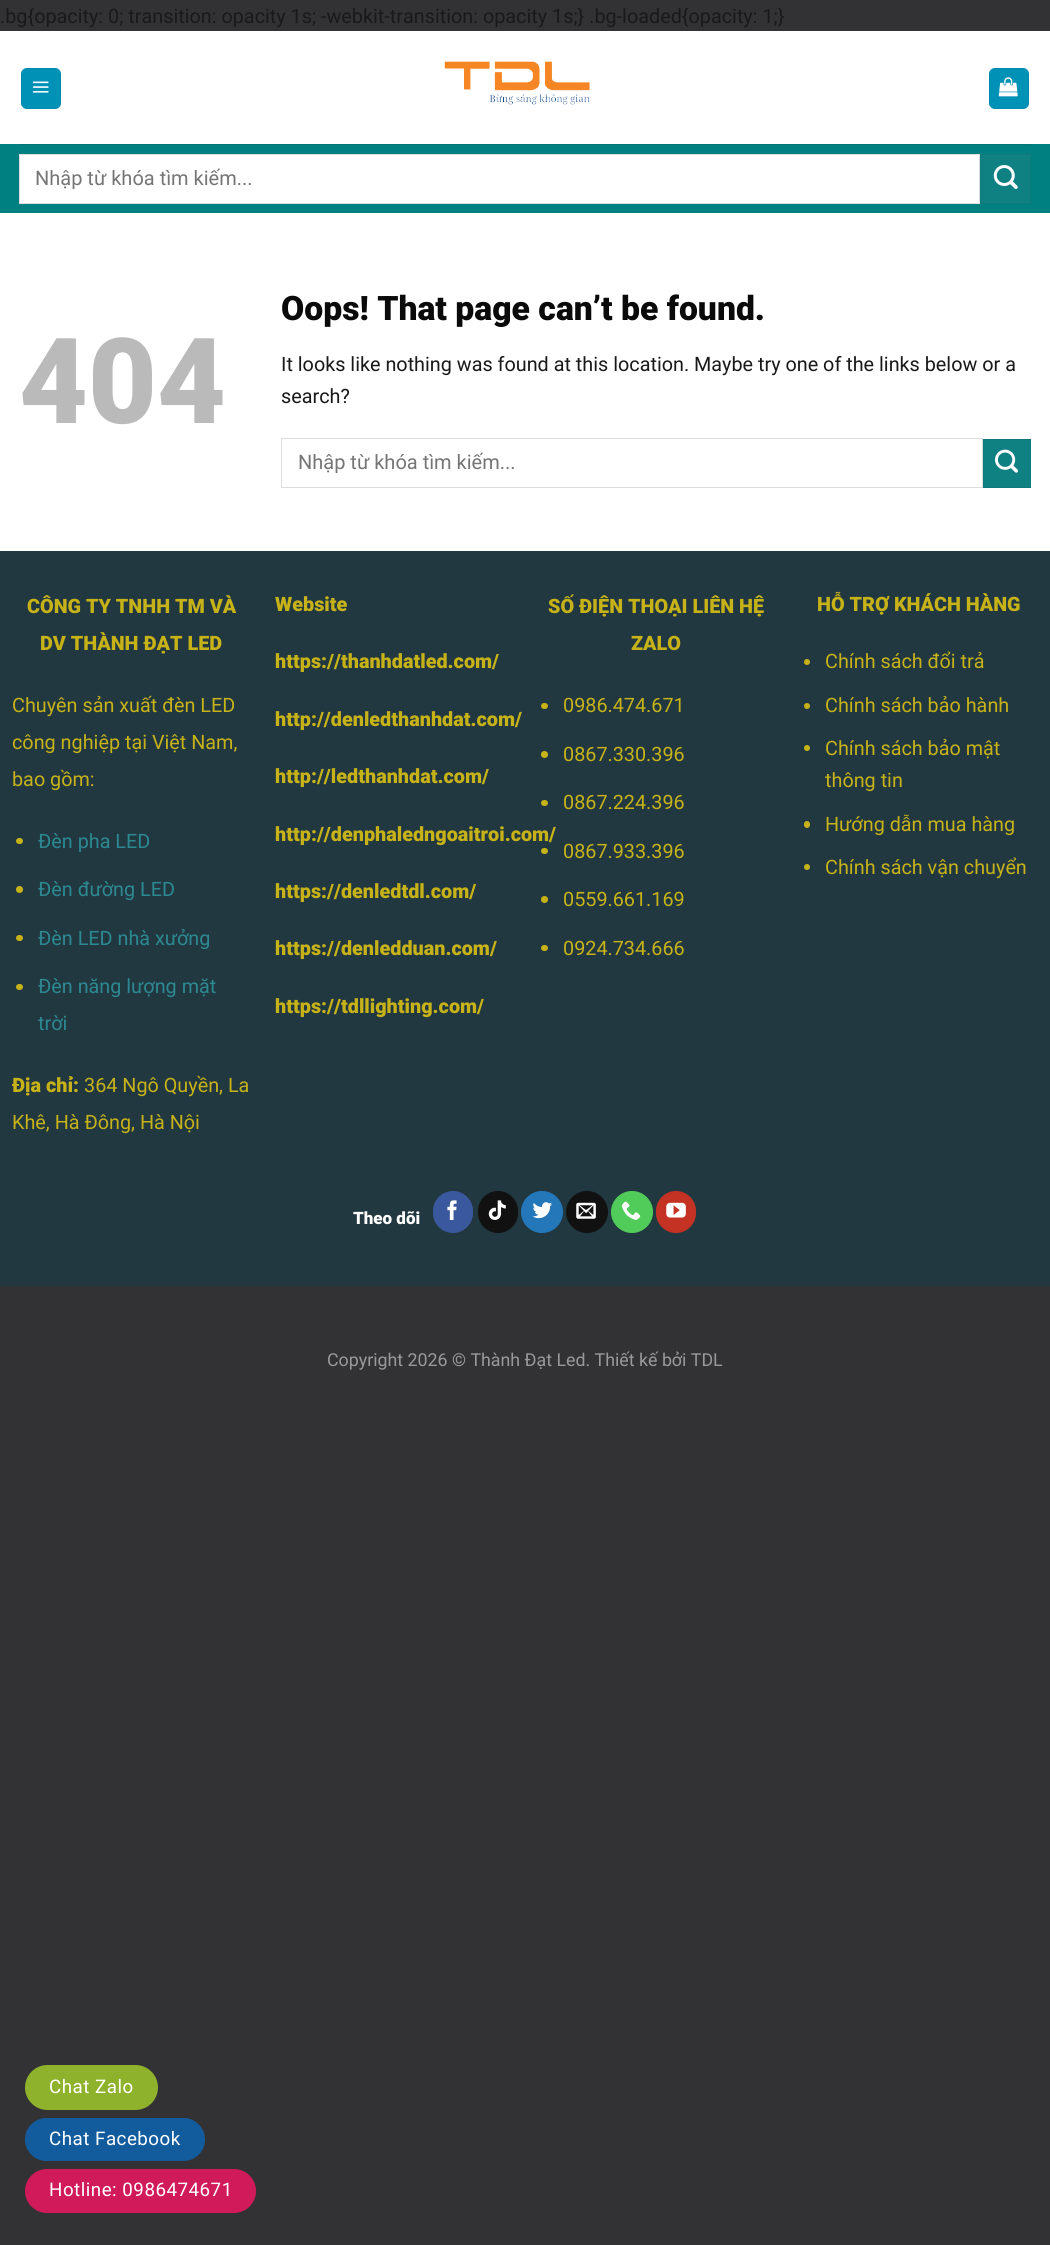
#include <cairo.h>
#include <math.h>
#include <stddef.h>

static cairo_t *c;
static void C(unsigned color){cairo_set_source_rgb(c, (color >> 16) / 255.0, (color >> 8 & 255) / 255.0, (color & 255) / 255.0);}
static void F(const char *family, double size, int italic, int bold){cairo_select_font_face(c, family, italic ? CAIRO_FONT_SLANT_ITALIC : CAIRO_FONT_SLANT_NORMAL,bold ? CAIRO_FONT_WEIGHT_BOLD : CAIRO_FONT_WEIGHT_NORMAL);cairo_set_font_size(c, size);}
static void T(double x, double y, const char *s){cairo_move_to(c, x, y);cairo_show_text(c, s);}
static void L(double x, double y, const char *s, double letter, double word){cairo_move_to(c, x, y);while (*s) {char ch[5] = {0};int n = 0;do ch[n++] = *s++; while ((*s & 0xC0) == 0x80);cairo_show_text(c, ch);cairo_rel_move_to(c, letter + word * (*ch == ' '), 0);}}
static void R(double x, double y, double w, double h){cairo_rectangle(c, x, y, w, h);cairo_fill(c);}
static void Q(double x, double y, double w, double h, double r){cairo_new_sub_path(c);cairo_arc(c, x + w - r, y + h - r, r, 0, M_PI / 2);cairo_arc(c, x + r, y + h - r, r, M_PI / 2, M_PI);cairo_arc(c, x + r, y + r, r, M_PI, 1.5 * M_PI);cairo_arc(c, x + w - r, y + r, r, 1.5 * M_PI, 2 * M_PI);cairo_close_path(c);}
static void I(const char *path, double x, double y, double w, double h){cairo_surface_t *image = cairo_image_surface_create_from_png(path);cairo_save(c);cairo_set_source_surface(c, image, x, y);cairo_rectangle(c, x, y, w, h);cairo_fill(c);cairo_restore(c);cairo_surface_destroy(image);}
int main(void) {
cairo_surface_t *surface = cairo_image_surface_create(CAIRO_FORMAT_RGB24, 1050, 2245);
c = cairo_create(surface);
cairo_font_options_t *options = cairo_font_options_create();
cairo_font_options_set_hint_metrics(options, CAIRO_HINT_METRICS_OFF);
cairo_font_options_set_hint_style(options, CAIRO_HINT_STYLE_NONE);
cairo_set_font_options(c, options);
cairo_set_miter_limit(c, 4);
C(0x323234);
cairo_paint(c);
F("Roboto",19.8,0,0);
C(0x191919);
T(0,23,".bg{opacity: 0; transition: opacity 1s; -webkit-transition: opacity 1s;} .bg-loaded{opacity: 1;}");
C(0xffffff);
R(0,31,1050,520);
C(0x0092b6);
Q(21,68,40,41,6);
cairo_fill(c);
cairo_rectangle(c,21.5,68.5,39,40);
cairo_set_source_rgba(c,0,0,0,0.05);
cairo_set_line_width(c,1);
cairo_stroke(c);
I("1.png",32,81,17,12);
I("2.png",444,61,146,44);
C(0x0092b6);
Q(989,68,40,41,6);
cairo_fill(c);
cairo_rectangle(c,989.5,68.5,39,40);
cairo_set_source_rgba(c,0,0,0,0.05);
cairo_stroke(c);
I("3.png",998,77,20,20);
C(0x008080);
R(0,144,1050,69);
C(0x037676);
R(19,144,1012,1);
C(0xffffff);
cairo_rectangle(c,19.5,154.5,960,49);
cairo_fill_preserve(c);
C(0xdddddd);
cairo_stroke(c);
F("Roboto",20,0,0);
C(0x757575);
T(35,185,"Nhập từ khóa tìm kiếm...");
C(0x108183);
cairo_rectangle(c,980.5,154.5,50,49);
cairo_fill_preserve(c);
C(0x0f7b7c);
cairo_stroke(c);
I("4.png",993,165,25,24);
F("Roboto Black",119,0,0);
C(0xbababa);
T(19,423,"404");
F("Roboto Black",33.7,0,0);
C(0x0a0a0a);
T(281,320,"Oops! That page can’t be found.");
F("Roboto",19.8,0,0);
C(0x191919);
T(281,371,"It looks like nothing was found at this location. Maybe try one of the links below or a");
T(281,403,"search?");
cairo_rectangle(c,281.5,438.5,701,49);
C(0xdddddd);
cairo_stroke(c);
F("Roboto",20,0,0);
C(0x757575);
T(298,469,"Nhập từ khóa tìm kiếm...");
C(0x108183);
cairo_rectangle(c,983.5,439.5,47,48);
cairo_fill_preserve(c);
C(0x0f7b7c);
cairo_stroke(c);
I("5.png",995,449,23,24);
C(0x213840);
R(0,551,1050,735);
F("Roboto Black",19.8,0,0);
C(0xc7b218);
T(27,613,"CÔNG TY TNHH TM VÀ");
T(40,650,"DV THÀNH ĐẠT LED");
F("Roboto",19.8,0,0);
T(12,712,"Chuyên sản xuất đèn LED");
T(12,749,"công nghiệp tại Việt Nam,");
T(12,786,"bao gồm:");
Q(16,838,7,6,3);
cairo_fill(c);
C(0x2d8991);
T(38,848,"Đèn pha LED");
C(0xc7b218);
cairo_new_path(c);
cairo_arc(c,19.5,889.5,3.5,0,2 * M_PI);
cairo_fill(c);
C(0x2d8991);
T(38,896,"Đèn đường LED");
C(0xc7b218);
Q(16,935,7,6,3);
cairo_fill(c);
C(0x2d8991);
T(38,945,"Đèn LED nhà xưởng");
C(0xc7b218);
Q(16,984,7,6,3);
cairo_fill(c);
C(0x2d8991);
T(38,993,"Đèn năng lượng mặt");
T(38,1030,"trời");
F("Roboto Black",19.8,0,0);
C(0xc7b218);
T(12,1092,"Địa chỉ:");
F("Roboto",19.8,0,0);
T(84,1092,"364 Ngô Quyền, La");
T(12,1129,"Khê, Hà Đông, Hà Nội");
F("Roboto Black",19.8,0,0);
T(275,611,"Website");
T(275,668,"https://thanhdatled.com/");
T(275,726,"http://denledthanhdat.com/");
T(275,783,"http://ledthanhdat.com/");
T(275,841,"http://denphaledngoaitroi.com/");
T(275,898,"https://denledtdl.com/");
T(275,955,"https://denledduan.com/");
T(275,1013,"https://tdllighting.com/");
T(548,613,"SỐ ĐIỆN THOẠI LIÊN HỆ");
T(631,650,"ZALO");
Q(541,703,7,6,3);
cairo_fill(c);
F("Roboto",19.8,0,0);
T(563,712,"0986.474.671");
cairo_new_path(c);
cairo_arc(c,544.5,754.5,3.5,0,2 * M_PI);
cairo_fill(c);
T(563,761,"0867.330.396");
Q(541,800,7,6,3);
cairo_fill(c);
T(563,809,"0867.224.396");
Q(541,848,7,6,3);
cairo_fill(c);
T(563,858,"0867.933.396");
cairo_new_path(c);
cairo_arc(c,544.5,899.5,3.5,0,2 * M_PI);
cairo_fill(c);
T(563,906,"0559.661.169");
Q(541,945,7,6,3);
cairo_fill(c);
T(563,955,"0924.734.666");
F("Roboto Black",19.8,0,0);
T(817,611,"HỖ TRỢ KHÁCH HÀNG");
cairo_new_path(c);
cairo_arc(c,807,662,3,0,2 * M_PI);
cairo_fill(c);
F("Roboto",19.8,0,0);
T(825,668,"Chính sách đổi trả");
cairo_new_path(c);
cairo_arc(c,807,706,3,0,2 * M_PI);
cairo_fill(c);
T(825,712,"Chính sách bảo hành");
cairo_new_path(c);
cairo_arc(c,807,748,3,0,2 * M_PI);
cairo_fill(c);
T(825,755,"Chính sách bảo mật");
T(825,787,"thông tin");
Q(804,821,6,7,3);
cairo_fill(c);
T(825,831,"Hướng dẫn mua hàng");
cairo_new_path(c);
cairo_arc(c,807,867,3,0,2 * M_PI);
cairo_fill(c);
T(825,874,"Chính sách vận chuyển");
F("Roboto Black",17,0,0);
C(0xffffff);
T(353,1224,"Theo dõi");
C(0x3a589d);
Q(433.5,1191.5,39,41,19.5);
cairo_fill_preserve(c);
cairo_stroke(c);
I("6.png",447,1200,10,20);
C(0x111111);
Q(478.5,1191.5,39,41,19.5);
cairo_fill_preserve(c);
cairo_stroke(c);
I("7.png",488,1200,18,20);
C(0x2478ba);
cairo_arc(c,542,1212,20.5,0,2 * M_PI);
cairo_fill_preserve(c);
cairo_stroke(c);
I("8.png",532,1202,20,17);
C(0x111111);
cairo_arc(c,587,1212,20.5,0,2 * M_PI);
cairo_fill_preserve(c);
cairo_stroke(c);
I("9.png",576,1202,20,17);
C(0x51cb5a);
cairo_arc(c,632,1212,20.5,0,2 * M_PI);
cairo_fill_preserve(c);
cairo_stroke(c);
I("10.png",621,1201,20,19);
C(0xc33223);
Q(656.5,1191.5,39,41,19.5);
cairo_fill_preserve(c);
cairo_stroke(c);
I("11.png",666,1202,20,16);
F("Roboto",17.8,0,0);
C(0x99999a);
T(327,1366,"Copyright 2026 © Thành Đạt Led. Thiết kế bởi TDL");
C(0x8eb22b);
Q(25,2065,133,45,22.5);
cairo_fill(c);
F("Roboto",18.75,0,0);
C(0xffffff);
L(49,2093,"Chat Zalo",.5,0);
C(0x125c9e);
Q(25,2118,180,43,21.5);
cairo_fill(c);
C(0xffffff);
L(49,2145,"Chat Facebook",.5,0);
C(0xd11a59);
Q(25,2169,231,44,22);
cairo_fill(c);
C(0xffffff);
L(49,2196,"Hotline: 0986474671",.5,0);
cairo_surface_write_to_png(surface, "o.png");
cairo_font_options_destroy(options);
cairo_destroy(c);
cairo_surface_destroy(surface);
return 0;
}
